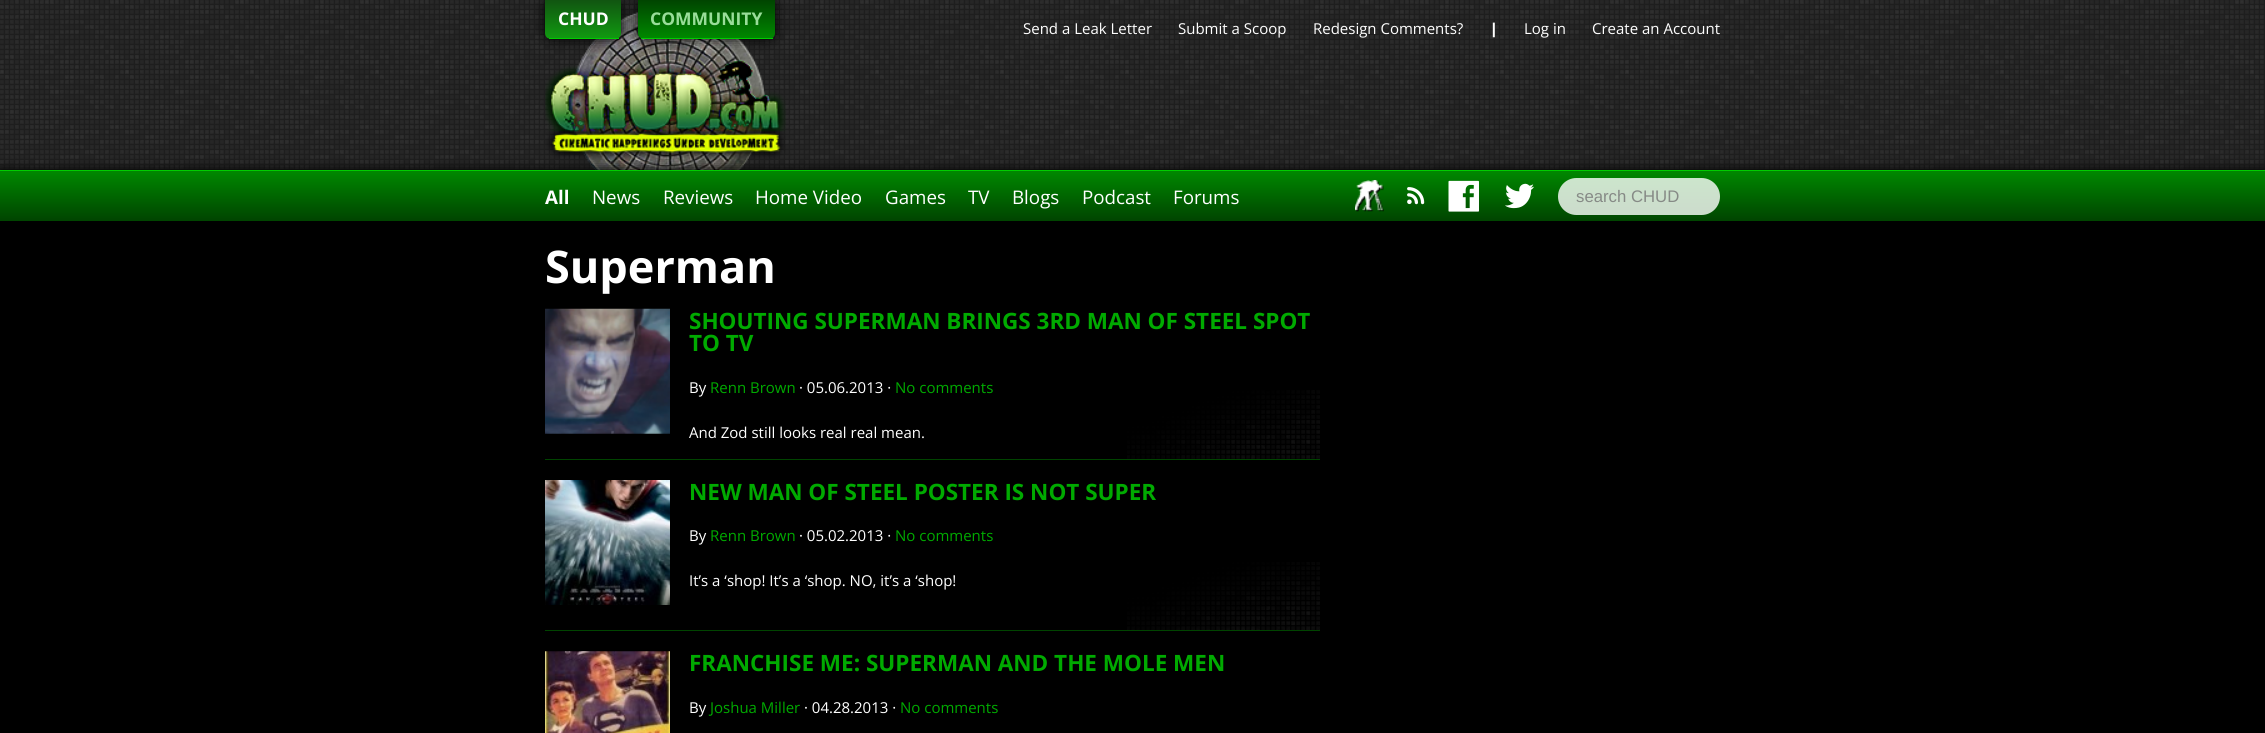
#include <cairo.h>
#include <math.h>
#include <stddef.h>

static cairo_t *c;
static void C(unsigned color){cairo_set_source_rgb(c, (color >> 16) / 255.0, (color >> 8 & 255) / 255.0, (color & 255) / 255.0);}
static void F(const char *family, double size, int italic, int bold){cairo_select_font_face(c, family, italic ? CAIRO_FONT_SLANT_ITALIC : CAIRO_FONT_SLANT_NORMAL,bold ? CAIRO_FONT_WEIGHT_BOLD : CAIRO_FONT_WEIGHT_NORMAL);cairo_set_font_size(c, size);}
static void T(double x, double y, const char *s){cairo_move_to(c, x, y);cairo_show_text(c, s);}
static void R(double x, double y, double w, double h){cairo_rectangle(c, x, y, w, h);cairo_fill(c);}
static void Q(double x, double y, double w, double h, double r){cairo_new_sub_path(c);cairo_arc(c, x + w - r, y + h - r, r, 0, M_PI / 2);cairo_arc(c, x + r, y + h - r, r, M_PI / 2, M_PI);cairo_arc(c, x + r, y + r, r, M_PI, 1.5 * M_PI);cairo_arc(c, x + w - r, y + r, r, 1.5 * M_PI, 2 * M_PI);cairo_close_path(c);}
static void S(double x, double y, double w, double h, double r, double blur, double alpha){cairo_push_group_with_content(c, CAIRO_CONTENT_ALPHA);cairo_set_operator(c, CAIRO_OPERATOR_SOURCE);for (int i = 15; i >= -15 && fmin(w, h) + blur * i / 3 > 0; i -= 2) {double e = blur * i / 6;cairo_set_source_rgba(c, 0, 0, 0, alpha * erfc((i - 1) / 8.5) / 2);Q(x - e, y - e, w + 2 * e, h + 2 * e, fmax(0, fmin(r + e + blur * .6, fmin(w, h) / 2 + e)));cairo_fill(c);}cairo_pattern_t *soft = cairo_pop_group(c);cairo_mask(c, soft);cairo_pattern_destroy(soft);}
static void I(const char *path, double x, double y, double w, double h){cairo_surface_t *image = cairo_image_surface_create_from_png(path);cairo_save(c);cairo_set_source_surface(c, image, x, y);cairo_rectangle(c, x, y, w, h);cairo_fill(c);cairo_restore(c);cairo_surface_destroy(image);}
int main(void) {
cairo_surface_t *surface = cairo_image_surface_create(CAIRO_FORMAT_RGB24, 2265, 733);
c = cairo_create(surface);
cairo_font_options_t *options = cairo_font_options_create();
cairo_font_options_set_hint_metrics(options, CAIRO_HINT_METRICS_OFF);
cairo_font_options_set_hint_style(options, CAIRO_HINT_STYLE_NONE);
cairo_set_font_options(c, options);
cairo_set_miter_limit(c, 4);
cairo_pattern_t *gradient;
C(0x000000);
cairo_paint(c);
C(0x1e1e1e);
R(0,0,2265,170);
I("1.png",0,0,2264,169);
I("2.png",545,12,241,158);
C(0x000000);
S(545,0,76,39,6,6,1);
cairo_save(c);
cairo_new_path(c);
cairo_move_to(c,545,0);
cairo_line_to(c,621,0);
cairo_line_to(c,621,33);
cairo_curve_to(c,621,36.5,618.5,39,615,39);
cairo_line_to(c,551,39);
cairo_curve_to(c,547.5,39,545,36.5,545,33);
cairo_close_path(c);
cairo_clip(c);
gradient = cairo_pattern_create_linear(545,38,545,0);
cairo_pattern_add_color_stop_rgba(gradient,0,0.067,0.6,0.067,1);
cairo_pattern_add_color_stop_rgba(gradient,1,0.067,0.333,0.067,1);
cairo_set_source(c,gradient);
cairo_pattern_destroy(gradient);
R(545,0,76,38);
gradient = cairo_pattern_create_linear(545,75,545,38);
cairo_pattern_add_color_stop_rgba(gradient,0,0.067,0.6,0.067,1);
cairo_pattern_add_color_stop_rgba(gradient,1,0.067,0.333,0.067,1);
cairo_set_source(c,gradient);
cairo_pattern_destroy(gradient);
R(545,38,4,1);
cairo_restore(c);
C(0x00cc00);
R(549,38,70,1);
F("Open Sans",17.5,0,1);
C(0xffffff);
T(558,25,"CHUD");
C(0x000000);
S(638,0,137,39,6,6,1);
cairo_save(c);
cairo_new_path(c);
cairo_move_to(c,638,0);
cairo_line_to(c,775,0);
cairo_line_to(c,775,33);
cairo_curve_to(c,775,36.5,772.5,39,769,39);
cairo_line_to(c,644,39);
cairo_curve_to(c,640.5,39,638,36.5,638,33);
cairo_close_path(c);
cairo_clip(c);
gradient = cairo_pattern_create_linear(638,38,638,0);
cairo_pattern_add_color_stop_rgba(gradient,0,0,0.533,0,1);
cairo_pattern_add_color_stop_rgba(gradient,1,0,0.267,0,1);
cairo_set_source(c,gradient);
cairo_pattern_destroy(gradient);
R(638,0,137,38);
cairo_restore(c);
C(0x00cc00);
R(641,38,132,1);
C(0x99dd99);
T(650,25,"COMMUNITY");
F("Open Sans",15,0,0);
C(0xffffff);
T(1023,34,"Send a Leak Letter");
T(1178,34,"Submit a Scoop");
T(1313,34,"Redesign Comments?");
F("Open Sans ExtraBold",15,0,0);
T(1490,34,"|");
F("Open Sans",15,0,0);
T(1524,34,"Log in");
T(1592,34,"Create an Account");
C(0x000000);
S(0,170,2265,51,0,6,1);
gradient = cairo_pattern_create_linear(0,221,0,171);
cairo_pattern_add_color_stop_rgba(gradient,0,0,0.267,0,1);
cairo_pattern_add_color_stop_rgba(gradient,1,0,0.533,0,1);
cairo_set_source(c,gradient);
cairo_pattern_destroy(gradient);
R(0,171,2265,50);
C(0x00cc00);
R(0,170,2265,1);
F("Open Sans",18.75,0,1);
C(0xffffff);
T(545,204,"All");
F("Open Sans",18.75,0,0);
T(592,204,"News");
T(663,204,"Reviews");
T(755,204,"Home Video");
T(885,204,"Games");
T(968,204,"TV");
T(1012,204,"Blogs");
T(1082,204,"Podcast");
T(1173,204,"Forums");
I("3.png",1355,180,29,32);
I("4.png",1407,187,18,18);
I("5.png",1448,180,31,32);
I("6.png",1505,183,29,26);
cairo_set_source_rgba(c,1,1,1,0.8);
Q(1558,178,162,37,18.5);
cairo_fill(c);
F("Liberation Sans",16.75,0,0);
C(0x868a86);
T(1576,202,"search CHUD");
F("Open Sans",45,0,1);
C(0xffffff);
T(545,283,"Superman");
I("7.png",1127,390,193,69);
C(0x004400);
R(545,459,775,1);
I("8.png",545,308,125,126);
F("Open Sans",22.5,0,1);
C(0x00aa00);
T(689,329,"SHOUTING SUPERMAN BRINGS 3RD MAN OF STEEL SPOT");
T(689,351,"TO TV");
F("Open Sans",15,0,0);
C(0xffffff);
T(689,393,"By");
C(0x00aa00);
T(710,393,"Renn Brown");
C(0xffffff);
T(799,393,"· 05.06.2013 ·");
C(0x00aa00);
T(895,393,"No comments");
C(0xffffff);
T(689,438,"And Zod still looks real real mean.");
I("9.png",1127,562,193,68);
C(0x004400);
R(545,630,775,1);
I("10.png",545,480,125,125);
F("Open Sans",22.5,0,1);
C(0x00aa00);
T(689,500,"NEW MAN OF STEEL POSTER IS NOT SUPER");
F("Open Sans",15,0,0);
C(0xffffff);
T(689,541,"By");
C(0x00aa00);
T(710,541,"Renn Brown");
C(0xffffff);
T(799,541,"· 05.02.2013 ·");
C(0x00aa00);
T(895,541,"No comments");
C(0xffffff);
T(689,586,"It’s a ‘shop! It’s a ‘shop. NO, it’s a ‘shop!");
I("11.png",545,651,125,82);
F("Open Sans",22.5,0,1);
C(0x00aa00);
T(689,671,"FRANCHISE ME: SUPERMAN AND THE MOLE MEN");
F("Open Sans",15,0,0);
C(0xffffff);
T(689,713,"By");
C(0x00aa00);
T(710,713,"Joshua Miller");
C(0xffffff);
T(804,713,"· 04.28.2013 ·");
C(0x00aa00);
T(900,713,"No comments");
cairo_surface_write_to_png(surface, "o.png");
cairo_font_options_destroy(options);
cairo_destroy(c);
cairo_surface_destroy(surface);
return 0;
}
